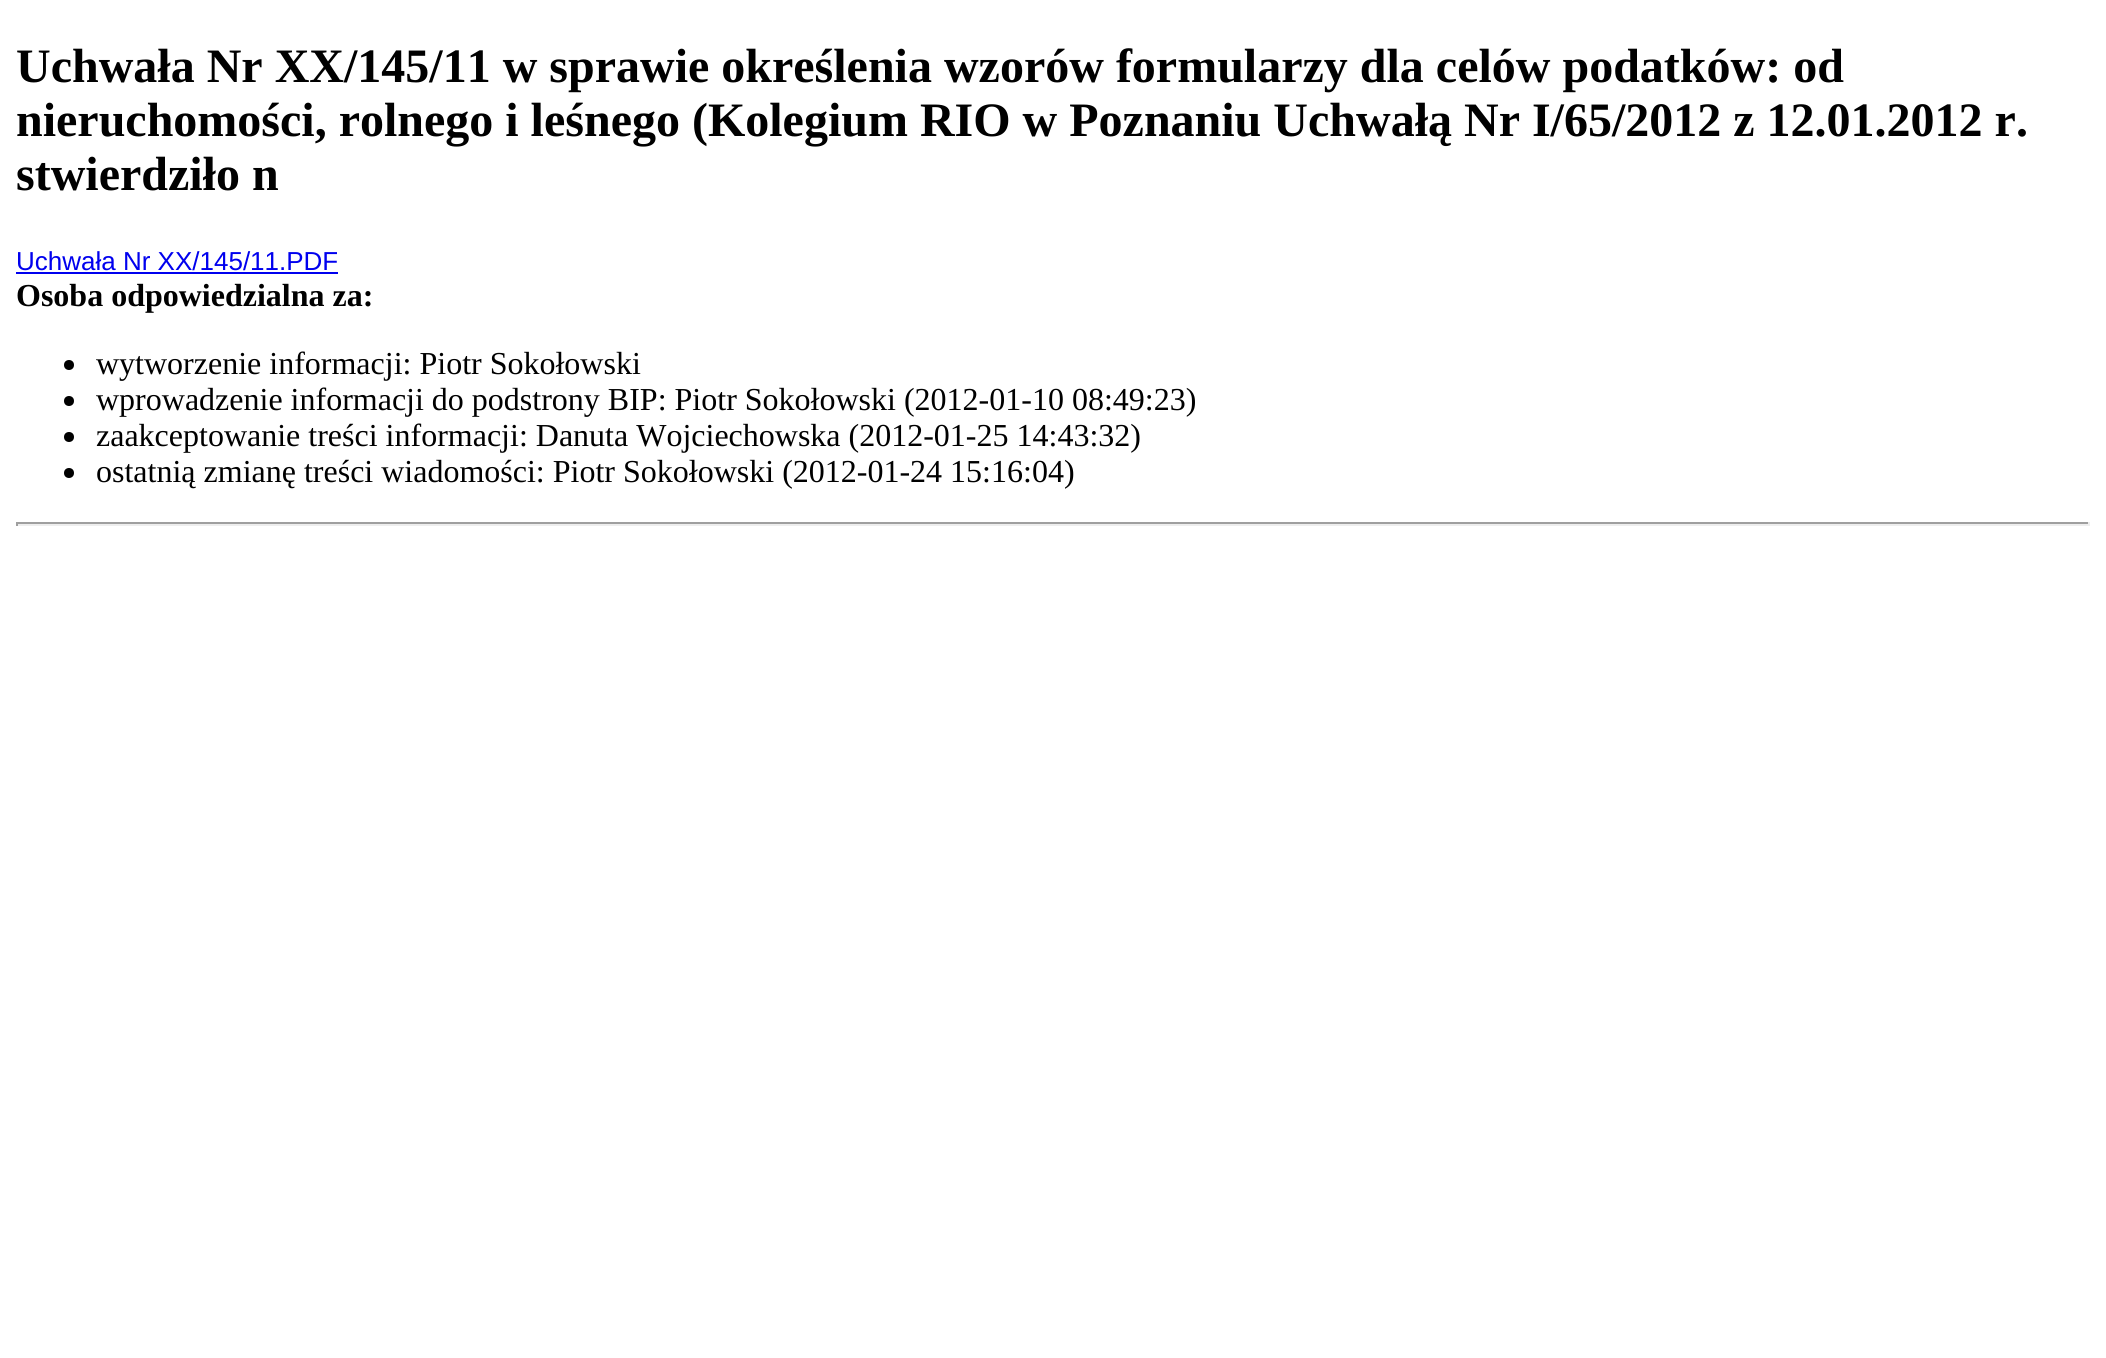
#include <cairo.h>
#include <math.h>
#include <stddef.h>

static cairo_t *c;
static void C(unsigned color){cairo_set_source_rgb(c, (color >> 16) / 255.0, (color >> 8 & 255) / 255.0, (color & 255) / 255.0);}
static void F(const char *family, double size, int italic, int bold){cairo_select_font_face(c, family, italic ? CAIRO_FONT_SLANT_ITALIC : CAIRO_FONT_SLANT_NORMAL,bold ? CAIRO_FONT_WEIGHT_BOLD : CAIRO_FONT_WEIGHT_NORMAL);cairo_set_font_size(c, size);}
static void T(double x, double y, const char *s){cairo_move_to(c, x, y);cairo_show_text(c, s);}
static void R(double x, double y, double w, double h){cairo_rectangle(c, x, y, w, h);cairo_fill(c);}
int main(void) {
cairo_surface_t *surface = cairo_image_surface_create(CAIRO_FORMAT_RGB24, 2106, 1358);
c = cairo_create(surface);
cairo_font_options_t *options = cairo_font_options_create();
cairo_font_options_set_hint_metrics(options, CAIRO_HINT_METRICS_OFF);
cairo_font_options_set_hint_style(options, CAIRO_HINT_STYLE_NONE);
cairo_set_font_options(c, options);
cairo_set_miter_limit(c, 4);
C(0xffffff);
cairo_paint(c);
F("Liberation Serif",48,0,1);
C(0x000000);
T(16,82,"Uchwała Nr XX/145/11 w sprawie określenia wzorów formularzy dla celów podatków: od");
T(16,136,"nieruchomości, rolnego i leśnego (Kolegium RIO w Poznaniu Uchwałą Nr I/65/2012 z 12.01.2012 r.");
T(16,190,"stwierdziło n");
F("Liberation Sans",26,0,0);
C(0x0000ee);
T(16,270,"Uchwała Nr XX/145/11.PDF");
R(16,272,322,2);
F("Liberation Serif",32,0,1);
C(0x000000);
T(16,306,"Osoba odpowiedzialna za:");
cairo_new_path(c);
cairo_arc(c,69,365,5,0,2 * M_PI);
cairo_fill(c);
F("Liberation Serif",32,0,0);
T(96,374,"wytworzenie informacji: Piotr Sokołowski");
cairo_new_path(c);
cairo_arc(c,69,401,5,0,2 * M_PI);
cairo_fill(c);
T(96,410,"wprowadzenie informacji do podstrony BIP: Piotr Sokołowski (2012-01-10 08:49:23)");
cairo_new_path(c);
cairo_arc(c,69,437,5,0,2 * M_PI);
cairo_fill(c);
T(96,446,"zaakceptowanie treści informacji: Danuta Wojciechowska (2012-01-25 14:43:32)");
cairo_new_path(c);
cairo_arc(c,69,473,5,0,2 * M_PI);
cairo_fill(c);
T(96,482,"ostatnią zmianę treści wiadomości: Piotr Sokołowski (2012-01-24 15:16:04)");
C(0x9f9f9f);
R(16,522,2074,2);
C(0xeeeeee);
R(2088,522,2,4);
R(16,524,2074,2);
C(0x9f9f9f);
R(16,522,2,4);
cairo_surface_write_to_png(surface, "o.png");
cairo_font_options_destroy(options);
cairo_destroy(c);
cairo_surface_destroy(surface);
return 0;
}
